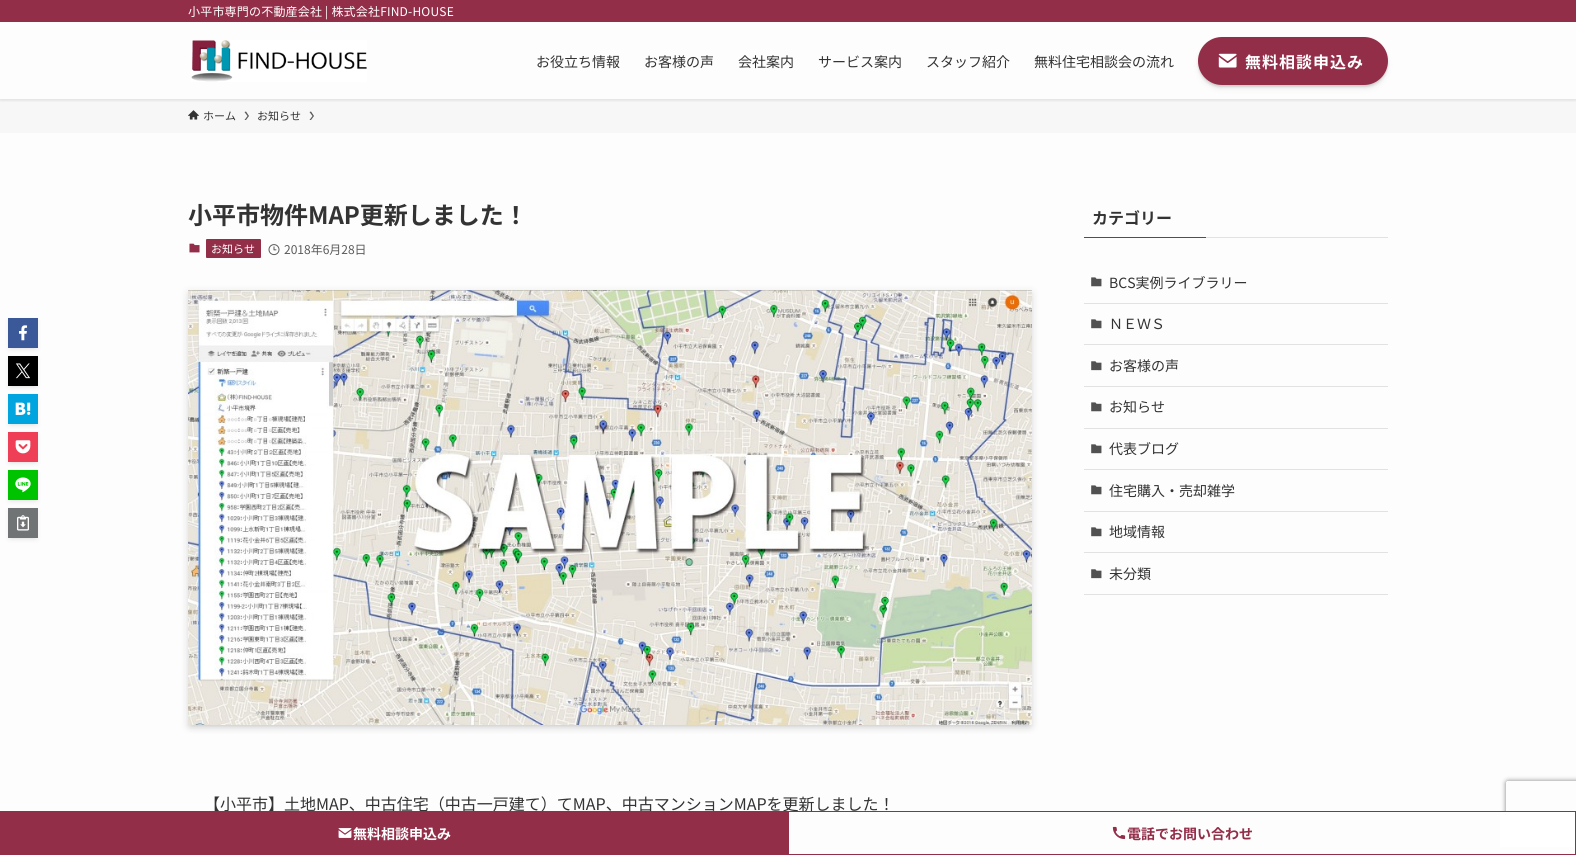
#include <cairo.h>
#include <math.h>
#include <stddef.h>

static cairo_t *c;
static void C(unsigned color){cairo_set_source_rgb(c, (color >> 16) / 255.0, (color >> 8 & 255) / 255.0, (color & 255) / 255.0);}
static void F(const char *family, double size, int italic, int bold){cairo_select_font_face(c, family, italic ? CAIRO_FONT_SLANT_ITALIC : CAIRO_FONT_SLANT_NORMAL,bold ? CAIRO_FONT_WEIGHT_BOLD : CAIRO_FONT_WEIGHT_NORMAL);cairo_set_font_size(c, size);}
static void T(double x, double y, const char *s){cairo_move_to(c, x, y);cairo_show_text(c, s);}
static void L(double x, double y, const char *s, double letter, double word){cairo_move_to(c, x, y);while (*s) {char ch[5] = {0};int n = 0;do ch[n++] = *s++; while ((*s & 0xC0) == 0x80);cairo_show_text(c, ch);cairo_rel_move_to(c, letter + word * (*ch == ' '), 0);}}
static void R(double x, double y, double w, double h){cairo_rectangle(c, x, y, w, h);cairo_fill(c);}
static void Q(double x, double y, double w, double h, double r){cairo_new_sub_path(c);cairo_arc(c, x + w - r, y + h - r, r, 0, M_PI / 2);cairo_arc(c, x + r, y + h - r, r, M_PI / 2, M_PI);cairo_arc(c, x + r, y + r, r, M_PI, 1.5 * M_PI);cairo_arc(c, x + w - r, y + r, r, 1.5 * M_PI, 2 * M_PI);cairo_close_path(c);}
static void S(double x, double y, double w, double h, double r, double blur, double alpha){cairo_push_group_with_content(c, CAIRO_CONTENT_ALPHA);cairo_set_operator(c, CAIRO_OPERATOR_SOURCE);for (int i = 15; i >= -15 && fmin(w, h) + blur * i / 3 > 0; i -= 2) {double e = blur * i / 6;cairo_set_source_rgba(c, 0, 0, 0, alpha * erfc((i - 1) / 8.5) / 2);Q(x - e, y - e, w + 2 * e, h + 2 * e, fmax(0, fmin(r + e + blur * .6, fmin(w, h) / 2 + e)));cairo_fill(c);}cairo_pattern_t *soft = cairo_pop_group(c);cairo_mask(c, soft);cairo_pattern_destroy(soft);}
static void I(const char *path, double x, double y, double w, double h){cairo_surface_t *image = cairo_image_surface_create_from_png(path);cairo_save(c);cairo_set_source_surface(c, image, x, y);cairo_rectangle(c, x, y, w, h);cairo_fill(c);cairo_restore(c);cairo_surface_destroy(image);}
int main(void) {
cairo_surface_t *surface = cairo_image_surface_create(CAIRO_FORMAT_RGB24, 1576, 855);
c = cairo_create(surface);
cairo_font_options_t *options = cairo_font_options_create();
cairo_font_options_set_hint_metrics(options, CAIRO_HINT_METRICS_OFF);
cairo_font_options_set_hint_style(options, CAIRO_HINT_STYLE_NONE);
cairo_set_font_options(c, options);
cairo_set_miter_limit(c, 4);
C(0xfdfdfd);
cairo_paint(c);
C(0xf7f7f7);
R(0,99,1576,34);
cairo_save(c);
cairo_rectangle(c,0,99,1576,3);
cairo_clip(c);
C(0x000000);
S(0,1,1576,99,0,2,.12);
cairo_restore(c);
C(0x932e49);
R(0,0,1576,22);
F("Noto Sans JP",12,0,0);
C(0xffffff);
L(188,16,"小平市専門の不動産会社 | 株式会社FIND-HOUSE",.2,0);
I("1.png",191,40,176,42);
F("Noto Sans JP",14,0,0);
C(0x333333);
T(536,67,"お役立ち情報");
T(644,67,"お客様の声");
T(738,67,"会社案内");
T(818,67,"サービス案内");
T(926,67,"スタッフ紹介");
T(1034,67,"無料住宅相談会の流れ");
C(0x000000);
S(1202,45,182,40,20,4,.2);
S(1198,39,190,48,24,1,.1);
C(0x932e49);
Q(1198,37,190,48,24);
cairo_fill(c);
I("2.png",1218,53,19,15);
F("Noto Sans JP",16,0,1);
C(0xffffff);
L(1245,68,"無料相談申込み",1,0);
I("3.png",188,110,11,10);
F("Noto Sans JP",11,0,0);
C(0x333333);
T(203,120,"ホーム");
C(0x5a5a5a);
cairo_new_path(c);
cairo_move_to(c,246,111.5);
cairo_line_to(c,244.5,112);
cairo_line_to(c,247.5,116);
cairo_line_to(c,244.5,120);
cairo_line_to(c,246,120);
cairo_line_to(c,249,116);
cairo_close_path(c);
cairo_fill(c);
C(0x333333);
T(257,120,"お知らせ");
C(0x5a5a5a);
cairo_new_path(c);
cairo_move_to(c,311,111.5);
cairo_line_to(c,309.5,112);
cairo_line_to(c,312.5,116);
cairo_line_to(c,309.5,120);
cairo_line_to(c,311,120);
cairo_line_to(c,314,116);
cairo_close_path(c);
cairo_fill(c);
F("Noto Sans JP",24,0,1);
C(0x333333);
T(188,224,"小平市物件MAP更新しました！");
I("4.png",189,243,11,10);
C(0x932e49);
Q(206,239,55,19,1);
cairo_fill(c);
F("Noto Sans JP",11,0,0);
C(0xffffff);
T(211,253,"お知らせ");
I("5.png",268,244,12,12);
F("Noto Sans JP",12,0,0);
C(0x5b5b5b);
T(284,254,"2018年6月28日");
C(0x000000);
S(12,326,22,22,0,2,.1);
S(8,320,30,30,0,2,.05);
C(0x3b5998);
R(8,318,30,30);
I("6.png",19,325,9,16);
C(0x000000);
S(12,364,22,22,0,2,.1);
S(8,358,30,30,0,2,.05);
C(0x000000);
R(8,356,30,30);
I("7.png",15,363,15,16);
C(0x000000);
S(12,402,22,22,0,2,.1);
S(8,396,30,30,0,2,.05);
C(0x00a4de);
R(8,394,30,30);
I("8.png",15,402,16,13);
C(0x000000);
S(12,440,22,22,0,2,.1);
S(8,434,30,30,0,2,.05);
C(0xef3f56);
R(8,432,30,30);
I("9.png",15,440,16,14);
C(0x000000);
S(12,478,22,22,0,2,.1);
S(8,472,30,30,0,2,.05);
C(0x00c300);
R(8,470,30,30);
I("10.png",15,477,16,16);
C(0x000000);
S(12,516,22,22,0,2,.1);
S(8,510,30,30,0,2,.05);
C(0x717475);
R(8,508,30,30);
I("11.png",17,515,12,16);
C(0x000000);
S(192,298,836,427,0,4,.2);
S(188,292,844,435,0,4,.1);
I("12.png",188,290,844,435);
F("Noto Sans JP",16,0,0);
C(0x333333);
T(204,810,"【小平市】土地MAP、中古住宅（中古一戸建て）てMAP、中古マンションMAPを更新しました！");
F("Noto Sans JP",16,0,1);
T(1092,224,"カテゴリー");
C(0x932e49);
R(1084,237,122,1);
C(0xe2e2e2);
R(1206,237,182,1);
R(1084,303,304,1);
I("13.png",1091,277,11,10);
F("Noto Sans JP",14,0,0);
C(0x333333);
T(1109,288,"BCS実例ライブラリー");
C(0xe2e2e2);
R(1084,344,304,1);
I("14.png",1091,319,11,10);
C(0x333333);
T(1109,329,"ＮＥＷＳ");
C(0xe2e2e2);
R(1084,386,304,1);
I("15.png",1091,361,11,10);
C(0x333333);
T(1109,371,"お客様の声");
C(0xe2e2e2);
R(1084,428,304,1);
I("16.png",1091,402,11,10);
C(0x333333);
T(1109,412,"お知らせ");
C(0xe2e2e2);
R(1084,469,304,1);
I("17.png",1091,444,11,10);
C(0x333333);
T(1109,454,"代表ブログ");
C(0xe2e2e2);
R(1084,511,304,1);
I("18.png",1091,485,11,10);
C(0x333333);
T(1109,496,"住宅購入・売却雑学");
C(0xe2e2e2);
R(1084,552,304,1);
I("19.png",1091,527,11,10);
C(0x333333);
T(1109,537,"地域情報");
C(0xe2e2e2);
R(1084,594,304,1);
I("20.png",1091,569,11,10);
C(0x333333);
T(1109,579,"未分類");
C(0x932e49);
R(0,811,788,44);
I("21.png",338,828,14,10);
F("Noto Sans JP",14,0,1);
C(0xffffff);
T(353,839,"無料相談申込み");
cairo_save(c);
cairo_set_fill_rule(c,CAIRO_FILL_RULE_EVEN_ODD);
cairo_new_path(c);
cairo_move_to(c,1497,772);
cairo_line_to(c,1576,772);
cairo_line_to(c,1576,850);
cairo_line_to(c,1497,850);
cairo_close_path(c);
cairo_move_to(c,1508,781);
cairo_line_to(c,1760,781);
cairo_curve_to(c,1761,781,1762,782,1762,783);
cairo_line_to(c,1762,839);
cairo_curve_to(c,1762,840,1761,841,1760,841);
cairo_line_to(c,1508,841);
cairo_curve_to(c,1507,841,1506,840,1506,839);
cairo_line_to(c,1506,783);
cairo_curve_to(c,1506,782,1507,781,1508,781);
cairo_close_path(c);
cairo_clip(c);
C(0x808080);
S(1506,781,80,60,2,2.5,1);
cairo_restore(c);
R(1500,812,75,35);
cairo_rectangle(c,788.5,811.5,787,43);
C(0x932e49);
cairo_set_line_width(c,1);
cairo_stroke(c);
I("22.png",1112,826,14,14);
T(1127,839,"電話でお問い合わせ");
cairo_surface_write_to_png(surface, "o.png");
cairo_font_options_destroy(options);
cairo_destroy(c);
cairo_surface_destroy(surface);
return 0;
}
